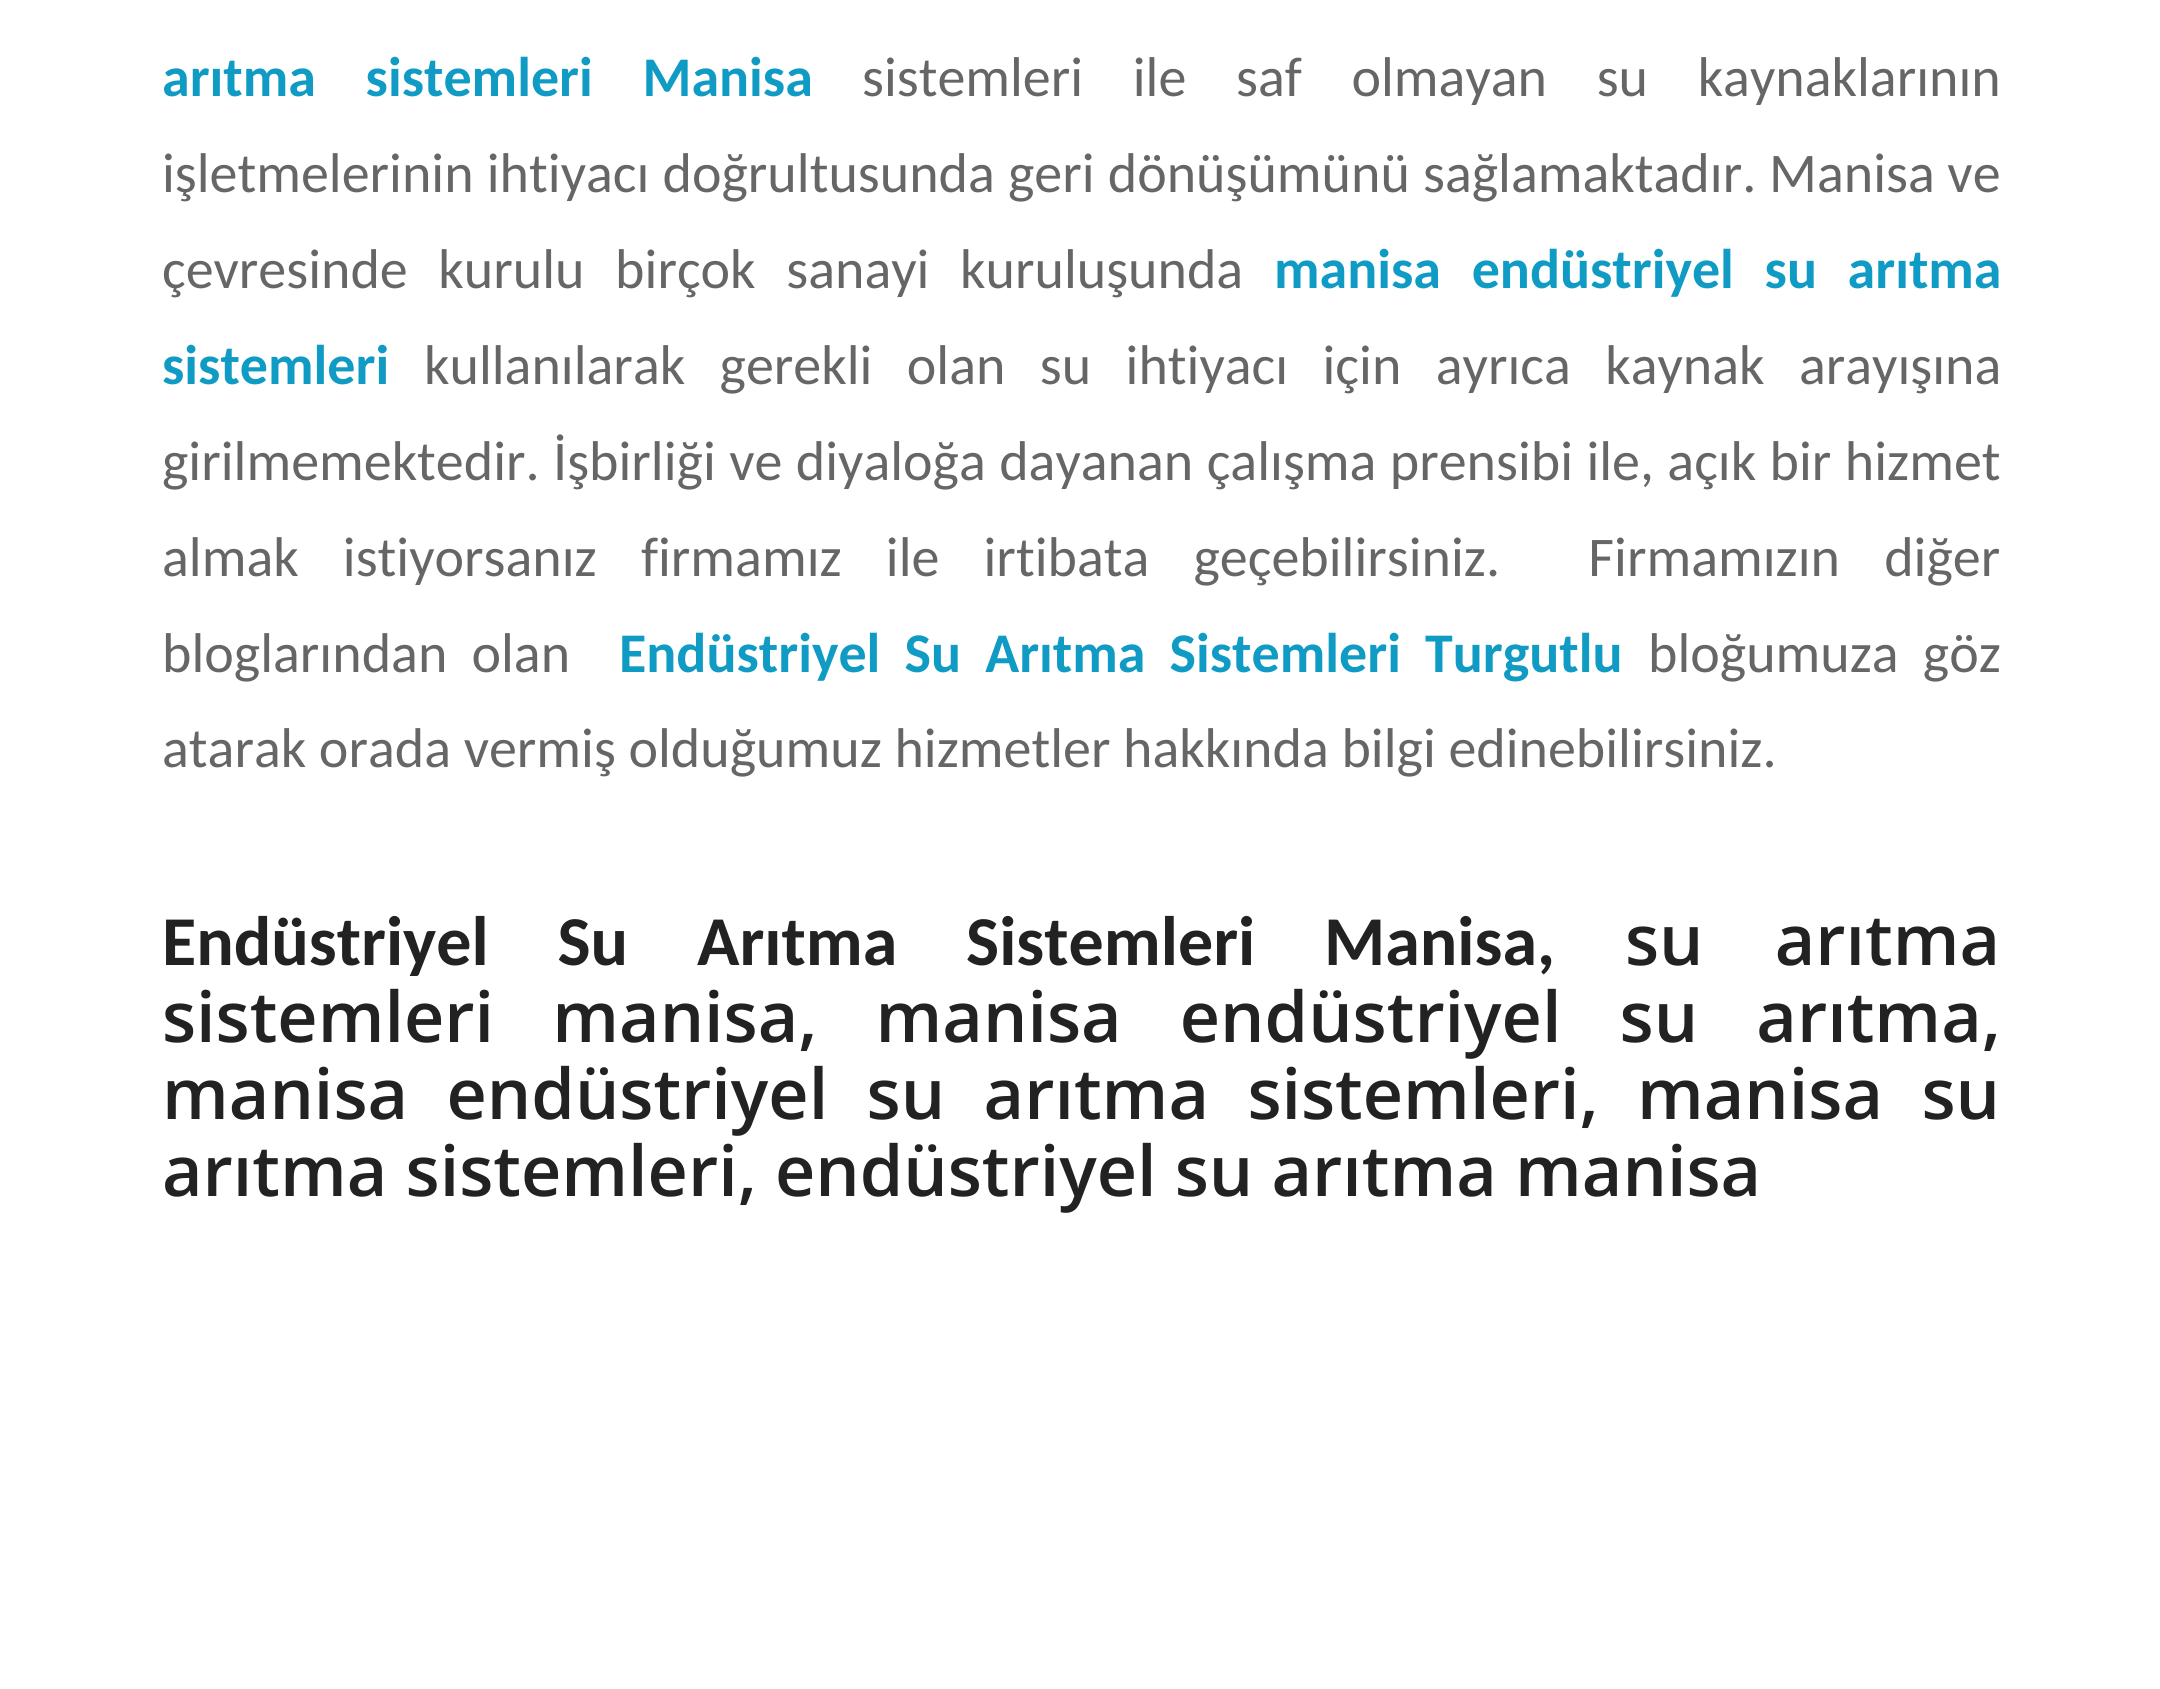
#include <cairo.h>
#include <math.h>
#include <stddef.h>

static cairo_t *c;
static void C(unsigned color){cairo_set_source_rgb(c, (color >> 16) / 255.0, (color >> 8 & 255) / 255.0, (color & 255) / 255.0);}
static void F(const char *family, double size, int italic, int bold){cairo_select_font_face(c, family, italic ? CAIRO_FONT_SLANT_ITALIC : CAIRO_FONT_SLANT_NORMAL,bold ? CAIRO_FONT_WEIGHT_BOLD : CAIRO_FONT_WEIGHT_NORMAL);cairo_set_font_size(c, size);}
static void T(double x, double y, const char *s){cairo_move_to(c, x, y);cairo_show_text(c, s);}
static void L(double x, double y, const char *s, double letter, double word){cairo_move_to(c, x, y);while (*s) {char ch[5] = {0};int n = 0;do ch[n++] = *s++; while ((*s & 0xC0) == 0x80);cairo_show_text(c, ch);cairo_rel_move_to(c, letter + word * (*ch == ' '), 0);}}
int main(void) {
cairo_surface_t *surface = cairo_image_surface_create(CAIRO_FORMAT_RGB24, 2160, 1689);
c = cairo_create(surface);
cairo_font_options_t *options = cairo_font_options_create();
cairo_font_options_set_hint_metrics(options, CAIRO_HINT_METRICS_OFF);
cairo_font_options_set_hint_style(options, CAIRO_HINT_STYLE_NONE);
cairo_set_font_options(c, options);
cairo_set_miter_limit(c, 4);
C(0xffffff);
cairo_paint(c);
F("Carlito",56,0,1);
C(0x109bc5);
L(162,96,"arıtma sistemleri Manisa",0,37);
F("Carlito",56,0,0);
C(0x666666);
L(862,96,"sistemleri ile saf olmayan su kaynaklarının",0,37);
L(162,192,"işletmelerinin ihtiyacı doğrultusunda geri dönüşümünü sağlamaktadır.",0,.5);
T(1769,192,"Manisa ve");
L(162,288,"çevresinde kurulu birçok sanayi kuruluşunda",0,18);
F("Carlito",56,0,1);
C(0x109bc5);
L(1274,288,"manisa endüstriyel su arıtma",0,18);
T(162,384,"sistemleri");
F("Carlito",56,0,0);
C(0x666666);
L(424,384,"kullanılarak gerekli olan su ihtiyacı için ayrıca kaynak arayışına",0,21.75);
L(162,480,"girilmemektedir. İşbirliği ve diyaloğa dayanan çalışma prensibi ile, açık bir hizmet",0,.75);
L(162,576,"almak istiyorsanız firmamız ile irtibata geçebilirsiniz.  Firmamızın diğer",0,31.5);
L(162,672,"bloglarından olan",0,11.5);
F("Carlito",56,0,1);
C(0x109bc5);
L(619,672,"Endüstriyel Su Arıtma Sistemleri Turgutlu",0,11.5);
F("Carlito",56,0,0);
C(0x666666);
L(1648,672,"bloğumuza göz",0,11.5);
T(162,767,"atarak orada vermiş olduğumuz hizmetler hakkında bilgi edinebilirsiniz.");
F("Carlito",70,0,1);
C(0x222222);
L(162,965,"Endüstriyel Su Arıtma Sistemleri Manisa,",0,53);
F("Open Sans SemiBold",70,0,0);
L(1625,965,"su arıtma",0,53);
L(162,1042,"sistemleri manisa, manisa endüstriyel su arıtma,",0,40);
L(162,1119,"manisa endüstriyel su arıtma sistemleri, manisa su",0,20.25);
T(162,1196,"arıtma sistemleri, endüstriyel su arıtma manisa");
cairo_surface_write_to_png(surface, "o.png");
cairo_font_options_destroy(options);
cairo_destroy(c);
cairo_surface_destroy(surface);
return 0;
}
